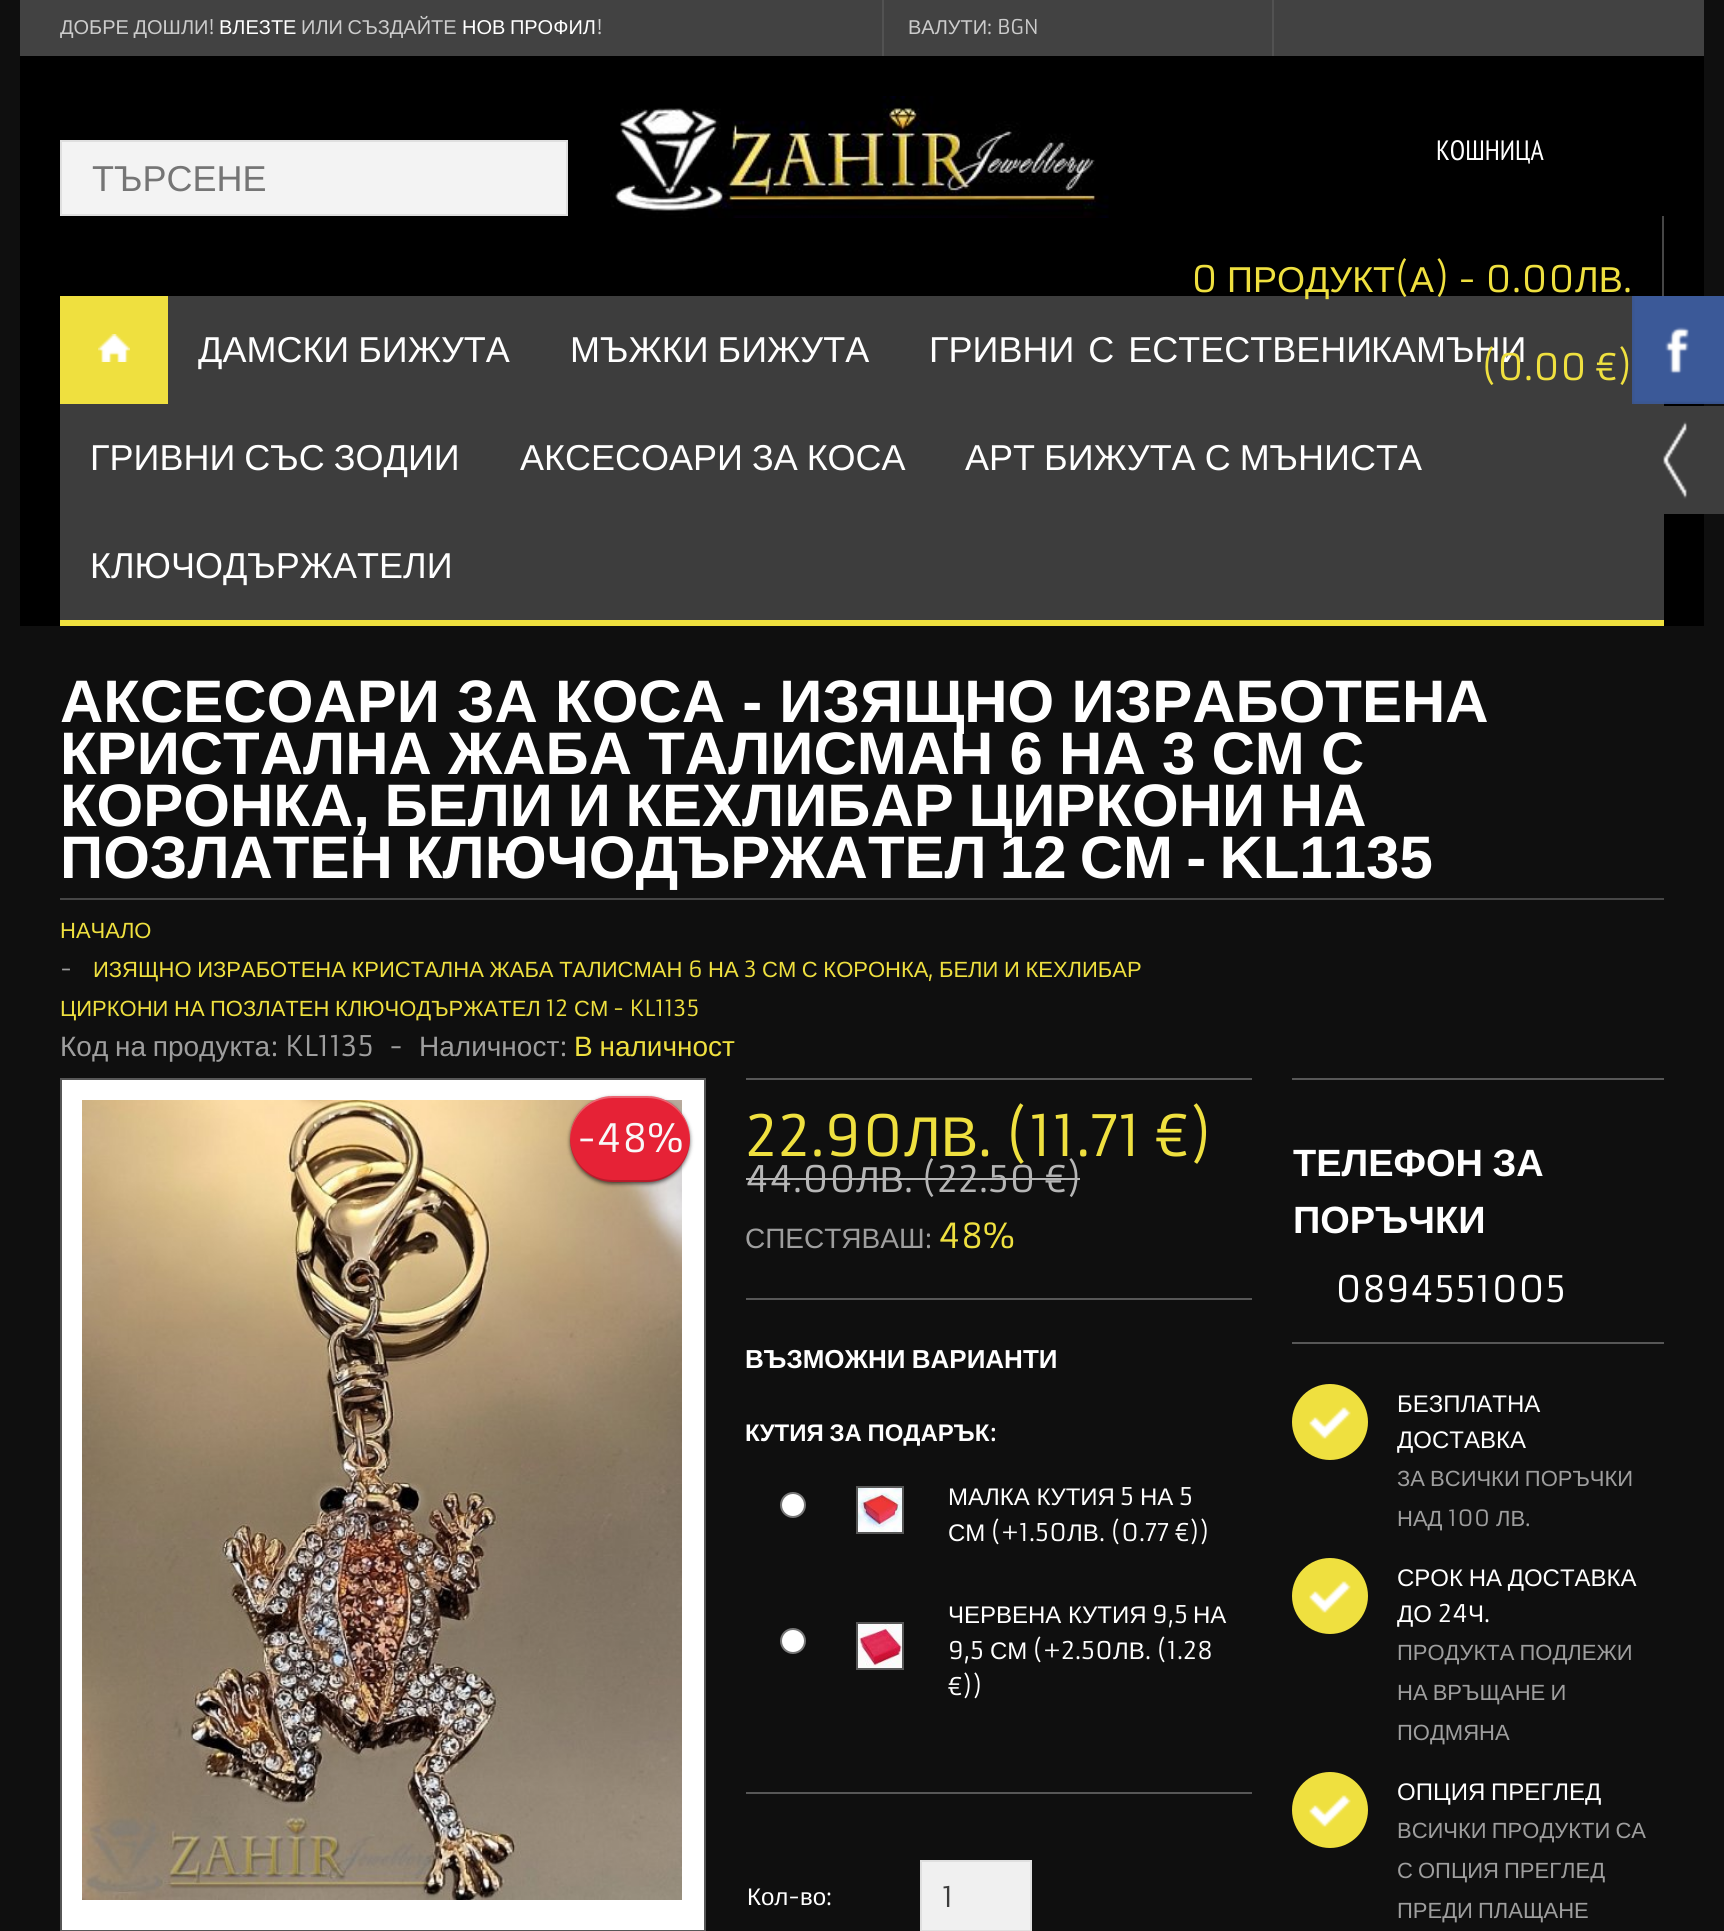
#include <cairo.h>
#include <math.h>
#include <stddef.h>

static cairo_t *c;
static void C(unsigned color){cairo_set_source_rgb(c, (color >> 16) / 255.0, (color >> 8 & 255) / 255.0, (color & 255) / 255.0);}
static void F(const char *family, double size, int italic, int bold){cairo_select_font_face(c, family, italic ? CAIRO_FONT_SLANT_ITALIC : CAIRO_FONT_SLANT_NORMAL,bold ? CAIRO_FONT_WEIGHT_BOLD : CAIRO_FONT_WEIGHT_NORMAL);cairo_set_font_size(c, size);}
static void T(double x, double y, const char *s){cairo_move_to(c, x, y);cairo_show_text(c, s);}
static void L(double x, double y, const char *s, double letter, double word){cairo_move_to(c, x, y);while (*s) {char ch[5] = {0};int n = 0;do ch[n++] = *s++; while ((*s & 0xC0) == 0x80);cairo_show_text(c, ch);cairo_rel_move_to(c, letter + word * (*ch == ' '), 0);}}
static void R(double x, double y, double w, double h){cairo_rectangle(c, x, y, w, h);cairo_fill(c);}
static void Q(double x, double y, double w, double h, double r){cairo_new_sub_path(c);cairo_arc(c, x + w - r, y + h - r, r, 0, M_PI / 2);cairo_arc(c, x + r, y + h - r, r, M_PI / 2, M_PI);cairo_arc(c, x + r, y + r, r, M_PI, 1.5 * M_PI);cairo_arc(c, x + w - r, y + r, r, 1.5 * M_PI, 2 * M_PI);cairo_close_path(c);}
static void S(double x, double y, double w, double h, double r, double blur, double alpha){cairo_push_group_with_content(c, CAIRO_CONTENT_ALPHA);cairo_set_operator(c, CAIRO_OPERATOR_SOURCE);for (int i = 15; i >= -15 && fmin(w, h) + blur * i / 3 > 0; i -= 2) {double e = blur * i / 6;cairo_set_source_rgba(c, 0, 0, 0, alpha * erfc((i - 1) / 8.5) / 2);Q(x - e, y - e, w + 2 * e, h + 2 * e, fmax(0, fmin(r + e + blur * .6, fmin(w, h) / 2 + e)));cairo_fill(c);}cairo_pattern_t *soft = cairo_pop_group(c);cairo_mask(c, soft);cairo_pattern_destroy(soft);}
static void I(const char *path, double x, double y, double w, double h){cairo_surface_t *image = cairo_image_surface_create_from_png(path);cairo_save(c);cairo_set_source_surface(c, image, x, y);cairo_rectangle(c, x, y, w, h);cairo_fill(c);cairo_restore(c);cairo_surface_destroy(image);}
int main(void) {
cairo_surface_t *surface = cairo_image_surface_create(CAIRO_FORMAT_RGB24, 1724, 1931);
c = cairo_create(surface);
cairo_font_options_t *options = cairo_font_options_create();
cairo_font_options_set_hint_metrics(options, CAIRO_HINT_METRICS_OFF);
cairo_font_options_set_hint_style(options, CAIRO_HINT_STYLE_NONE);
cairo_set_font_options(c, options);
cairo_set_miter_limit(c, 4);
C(0x0f0f0f);
cairo_paint(c);
C(0x424242);
R(20,0,1684,56);
F("Liberation Sans",20,0,0);
C(0xcccccc);
L(60,34,"ДОБРЕ ДОШЛИ",0,-1);
F("Armata",20,0,0);
T(209,34,"!");
F("Liberation Sans",20,0,0);
C(0xffffff);
T(219,34,"ВЛЕЗТЕ");
C(0xcccccc);
L(301,34,"ИЛИ СЪЗДАЙТЕ",0,-1);
C(0xffffff);
L(462,34,"НОВ ПРОФИЛ",0,-1);
F("Armata",20,0,0);
C(0xcccccc);
T(597,34,"!");
C(0x525252);
R(1272,0,2,56);
R(882,0,2,56);
F("Liberation Sans",20,0,0);
C(0xcccccc);
T(908,34,"ВАЛУТИ");
F("Armata",20,0,0);
T(987,34,": BGN");
C(0x000000);
R(20,56,1684,570);
C(0xf3f3f3);
cairo_rectangle(c,61,141,506,74);
cairo_fill_preserve(c);
C(0xdfdfdf);
cairo_stroke(c);
F("Liberation Sans",36,0,0);
C(0x757575);
T(92,191,"ТЪРСЕНЕ");
I("1.png",610,96,499,122);
F("PT Sans Narrow",28,0,0);
C(0xffffff);
T(1436,160,"КОШНИЦА");
C(0x3d3d3d);
R(60,296,1604,324);
C(0x464646);
R(1662,216,2,88);
F("Armata",36,0,0);
C(0xefe03f);
T(1191,292,"0");
F("Liberation Sans",36,0,0);
T(1227,292,"ПРОДУКТ");
F("Armata",36,0,0);
T(1395,292,"(");
F("Liberation Sans",36,0,0);
T(1410,292,"А");
F("Armata",36,0,0);
T(1434,292,") - 0.00");
F("Liberation Sans",36,0,0);
T(1575,292,"ЛВ");
F("Armata",36,0,0);
T(1623,292,".");
F("Liberation Sans",36,0,0);
C(0xffffff);
T(1371,362,"КАМЪНИ");
F("Armata",36,0,0);
C(0xefe03f);
T(1482,380,"(0.00 €)");
R(60,620,1604,6);
R(60,296,108,108);
I("2.png",98,334,32,28);
F("Liberation Sans",36,0,0);
C(0xffffff);
L(198,362,"ДАМСКИ БИЖУТА",0,-1);
L(570,362,"МЪЖКИ БИЖУТА",0,-1);
L(929,362,"ГРИВНИ С ЕСТЕСТВЕНИ",0,4);
L(90,470,"ГРИВНИ СЪС ЗОДИИ",0,-1);
L(520,470,"АКСЕСОАРИ ЗА КОСА",0,-1);
L(965,470,"АРТ БИЖУТА С МЪНИСТА",0,-1);
T(90,578,"КЛЮЧОДЪРЖАТЕЛИ");
C(0x464646);
R(60,898,1604,2);
F("Liberation Sans",60,0,1);
C(0xffffff);
L(60,722,"АКСЕСОАРИ ЗА КОСА - ИЗЯЩНО ИЗРАБОТЕНА",0,.5);
L(60,774,"КРИСТАЛНА ЖАБА ТАЛИСМАН 6 НА 3 СМ С",0,-.5);
L(60,826,"КОРОНКА, БЕЛИ И КЕХЛИБАР ЦИРКОНИ НА",0,-2);
L(60,878,"ПОЗЛАТЕН КЛЮЧОДЪРЖАТЕЛ 12 СМ - KL1135",0,-3.5);
F("Liberation Sans",22,0,0);
C(0xefe03f);
T(60,938,"НАЧАЛО");
F("Armata",24,0,0);
C(0x9e9e9e);
T(60,977,"-");
F("Liberation Sans",22,0,0);
C(0xefe03f);
L(93,977,"ИЗЯЩНО ИЗРАБОТЕНА КРИСТАЛНА ЖАБА ТАЛИСМАН",0,-.5);
F("Armata",22,0,0);
T(688,977,"6");
F("Liberation Sans",22,0,0);
T(708,977,"НА");
F("Armata",22,0,0);
T(744,977,"3");
F("Liberation Sans",22,0,0);
L(762,977,"СМ С КОРОНКА",0,-.5);
L(939,977,"БЕЛИ И КЕХЛИБАР",0,-.5);
F("Armata",22,0,0);
T(928,977,",");
F("Liberation Sans",22,0,0);
T(60,1016,"ЦИРКОНИ");
T(174,1016,"НА");
T(210,1016,"ПОЗЛАТЕН");
T(335,1016,"КЛЮЧОДЪРЖАТЕЛ");
F("Armata",22,0,0);
T(546,1016,"12");
F("Liberation Sans",22,0,0);
T(574,1016,"СМ");
F("Armata",22,0,0);
T(613,1016,"- KL1135");
F("Liberation Sans",28,0,0);
C(0x9e9e9e);
L(60,1056,"Код на продукта",0,-1);
F("Armata",28,0,0);
T(271,1056,": KL1135");
T(389,1056,"-");
F("Liberation Sans",28,0,0);
T(419,1056,"Наличност");
F("Armata",28,0,0);
T(560,1056,":");
F("Liberation Sans",28,0,0);
C(0xefe03f);
L(574,1056,"В наличност",0,-1);
C(0xffffff);
cairo_rectangle(c,61,1079,644,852);
cairo_fill_preserve(c);
C(0x575757);
cairo_stroke(c);
I("3.png",82,1100,600,800);
C(0x000000);
S(570,1098,120,86,43,2,.6);
C(0xe62236);
Q(570,1096,120,86,43);
cairo_fill(c);
cairo_set_source_rgba(c,0,0,0,0.2);
cairo_new_path(c);
cairo_move_to(c,570,1138);
cairo_curve_to(c,570,1158,584,1177,604,1181);
cairo_curve_to(c,613,1183,622,1182,630,1182);
cairo_curve_to(c,638,1182,647,1183,656,1181);
cairo_curve_to(c,676,1177,690,1158,690,1138);
cairo_curve_to(c,689,1162,671,1180,647,1180);
cairo_line_to(c,613,1180);
cairo_curve_to(c,589,1180,571,1162,570,1138);
cairo_close_path(c);
cairo_fill(c);
cairo_set_source_rgba(c,1,1,1,0.3);
cairo_new_path(c);
cairo_move_to(c,613,1098);
cairo_line_to(c,647,1098);
cairo_curve_to(c,671,1098,689,1116,690,1140);
cairo_curve_to(c,690,1120,676,1101,656,1097);
cairo_curve_to(c,647,1095,638,1096,630,1096);
cairo_curve_to(c,622,1096,613,1095,604,1097);
cairo_curve_to(c,584,1101,570,1120,570,1140);
cairo_curve_to(c,571,1116,589,1098,613,1098);
cairo_close_path(c);
cairo_fill(c);
F("Armata",38.5,0,0);
C(0xf8f8f8);
T(577,1152,"-48%");
C(0x575757);
R(746,1078,506,2);
F("Armata",56,0,0);
C(0xefe03f);
T(745,1156,"22.90");
F("Liberation Sans",56,0,0);
T(904,1156,"ЛВ");
F("Armata",56,0,0);
T(978,1156,". (11.71 €)");
F("Armata",36,0,0);
C(0xb6b6b6);
T(745,1192,"44.00");
R(746,1178,334,2);
F("Liberation Sans",36,0,0);
T(856,1192,"ЛВ");
F("Armata",36,0,0);
T(904,1192,". (22.50 €)");
F("Liberation Sans",28,0,0);
C(0x9e9e9e);
T(745,1248,"СПЕСТЯВАШ");
F("Armata",28,0,0);
T(925,1248,":");
F("Armata",34,0,0);
C(0xefe03f);
T(938,1248,"48%");
C(0x575757);
R(746,1298,506,2);
F("Liberation Sans",26,0,1);
C(0xffffff);
L(745,1368,"ВЪЗМОЖНИ ВАРИАНТИ",0,-1);
F("Liberation Sans",24,0,1);
L(745,1441,"КУТИЯ ЗА ПОДАРЪК",0,-1);
F("Armata",24,0,1);
T(990,1441,":");
cairo_new_path(c);
cairo_arc(c,793,1505,12,0,2 * M_PI);
cairo_fill_preserve(c);
C(0x767676);
cairo_stroke(c);
cairo_rectangle(c,857,1487,46,46);
C(0x575757);
cairo_stroke(c);
I("4.png",858,1488,44,44);
F("Liberation Sans",24,0,0);
C(0xffffff);
T(948,1505,"МАЛКА КУТИЯ");
F("Armata",24,0,0);
T(1120,1505,"5");
F("Liberation Sans",24,0,0);
T(1140,1505,"НА");
F("Armata",24,0,0);
T(1179,1505,"5");
F("Liberation Sans",24,0,0);
T(948,1541,"СМ");
F("Armata",24,0,0);
T(991,1541,"(+1.50");
F("Liberation Sans",24,0,0);
T(1067,1541,"ЛВ");
F("Armata",24,0,0);
T(1099,1541,". (0.77 €))");
cairo_new_path(c);
cairo_arc(c,793,1641,12,0,2 * M_PI);
cairo_fill_preserve(c);
C(0x767676);
cairo_stroke(c);
cairo_rectangle(c,857,1623,46,46);
C(0x575757);
cairo_stroke(c);
I("5.png",858,1624,44,44);
F("Liberation Sans",24,0,0);
C(0xffffff);
T(948,1623,"ЧЕРВЕНА КУТИЯ");
F("Armata",24,0,0);
T(1152,1623,"9,5");
F("Liberation Sans",24,0,0);
T(1193,1623,"НА");
F("Armata",24,0,0);
T(948,1659,"9,5");
F("Liberation Sans",24,0,0);
T(990,1659,"СМ");
F("Armata",24,0,0);
T(1033,1659,"(+2.50");
F("Liberation Sans",24,0,0);
T(1113,1659,"ЛВ");
F("Armata",24,0,0);
T(1145,1659,". (1.28");
T(948,1695,"€))");
C(0x575757);
R(746,1792,506,2);
F("Liberation Sans",24,0,0);
C(0xffffff);
T(747,1905,"Кол");
F("Armata",24,0,0);
T(788,1905,"-");
F("Liberation Sans",24,0,0);
T(800,1905,"во");
F("Armata",24,0,0);
T(826,1905,":");
C(0xf0f0f0);
cairo_rectangle(c,921,1861,110,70);
cairo_fill_preserve(c);
C(0xdfdfdf);
cairo_stroke(c);
F("Armata",28,0,0);
C(0x3c3c3c);
T(942,1907,"1");
C(0x575757);
R(1292,1078,372,2);
F("Liberation Sans",38,0,1);
C(0xffffff);
L(1293,1176,"ТЕЛЕФОН ЗА",0,-1);
T(1293,1233,"ПОРЪЧКИ");
F("Armata",36,0,0);
T(1335,1302,"0894551005");
C(0x575757);
R(1292,1342,372,2);
C(0xefe03f);
cairo_new_path(c);
cairo_arc(c,1330,1422,38,0,2 * M_PI);
cairo_fill(c);
I("6.png",1309,1407,42,32);
F("Liberation Sans",24,0,0);
C(0xffffff);
T(1397,1412,"БЕЗПЛАТНА");
T(1397,1448,"ДОСТАВКА");
F("Liberation Sans",22,0,0);
C(0x9e9e9e);
L(1397,1486,"ЗА ВСИЧКИ ПОРЪЧКИ",0,-1);
T(1397,1526,"НАД");
F("Armata",22,0,0);
T(1448,1526,"100");
F("Liberation Sans",22,0,0);
T(1496,1526,"ЛВ");
F("Armata",22,0,0);
T(1525,1526,".");
C(0xefe03f);
cairo_new_path(c);
cairo_arc(c,1330,1596,38,0,2 * M_PI);
cairo_fill(c);
I("6.png",1309,1581,42,32);
F("Liberation Sans",24,0,0);
C(0xffffff);
L(1397,1586,"СРОК НА ДОСТАВКА",0,-1);
T(1397,1622,"ДО");
F("Armata",24,0,0);
T(1438,1622,"24");
F("Liberation Sans",24,0,0);
T(1468,1622,"Ч");
F("Armata",24,0,0);
T(1484,1622,".");
F("Liberation Sans",22,0,0);
C(0x9e9e9e);
L(1397,1660,"ПРОДУКТА ПОДЛЕЖИ",0,-1);
L(1397,1700,"НА ВРЪЩАНЕ И",0,-1);
T(1397,1740,"ПОДМЯНА");
C(0xefe03f);
cairo_new_path(c);
cairo_arc(c,1330,1810,38,0,2 * M_PI);
cairo_fill(c);
I("6.png",1309,1795,42,32);
F("Liberation Sans",24,0,0);
C(0xffffff);
L(1397,1800,"ОПЦИЯ ПРЕГЛЕД",0,-1);
F("Liberation Sans",22,0,0);
C(0x9e9e9e);
L(1397,1838,"ВСИЧКИ ПРОДУКТИ СА",0,-1);
L(1397,1878,"С ОПЦИЯ ПРЕГЛЕД",0,-1);
L(1397,1918,"ПРЕДИ ПЛАЩАНЕ",0,-1);
I("7.png",1632,296,92,108);
C(0x3d3d3d);
R(1664,406,60,108);
I("8.png",1663,421,24,78);
cairo_surface_write_to_png(surface, "o.png");
cairo_font_options_destroy(options);
cairo_destroy(c);
cairo_surface_destroy(surface);
return 0;
}
